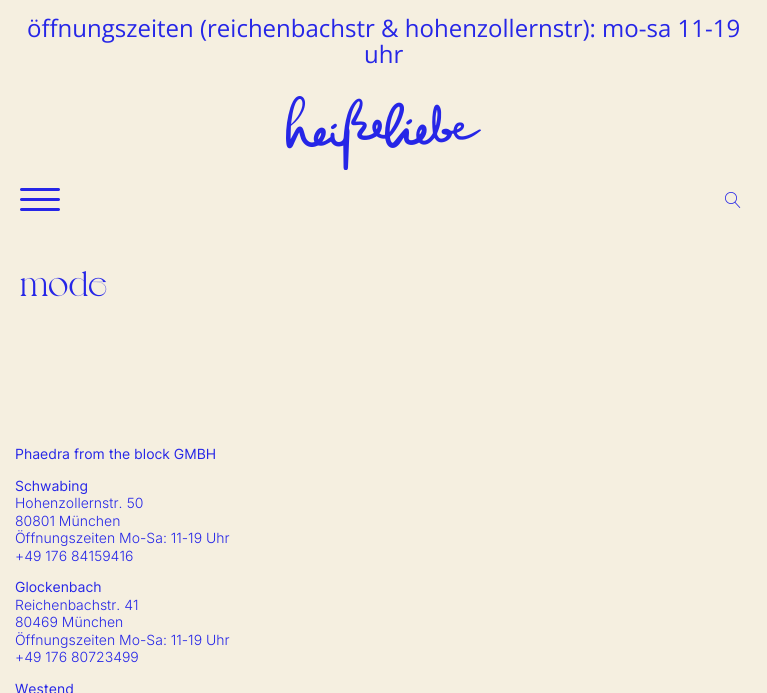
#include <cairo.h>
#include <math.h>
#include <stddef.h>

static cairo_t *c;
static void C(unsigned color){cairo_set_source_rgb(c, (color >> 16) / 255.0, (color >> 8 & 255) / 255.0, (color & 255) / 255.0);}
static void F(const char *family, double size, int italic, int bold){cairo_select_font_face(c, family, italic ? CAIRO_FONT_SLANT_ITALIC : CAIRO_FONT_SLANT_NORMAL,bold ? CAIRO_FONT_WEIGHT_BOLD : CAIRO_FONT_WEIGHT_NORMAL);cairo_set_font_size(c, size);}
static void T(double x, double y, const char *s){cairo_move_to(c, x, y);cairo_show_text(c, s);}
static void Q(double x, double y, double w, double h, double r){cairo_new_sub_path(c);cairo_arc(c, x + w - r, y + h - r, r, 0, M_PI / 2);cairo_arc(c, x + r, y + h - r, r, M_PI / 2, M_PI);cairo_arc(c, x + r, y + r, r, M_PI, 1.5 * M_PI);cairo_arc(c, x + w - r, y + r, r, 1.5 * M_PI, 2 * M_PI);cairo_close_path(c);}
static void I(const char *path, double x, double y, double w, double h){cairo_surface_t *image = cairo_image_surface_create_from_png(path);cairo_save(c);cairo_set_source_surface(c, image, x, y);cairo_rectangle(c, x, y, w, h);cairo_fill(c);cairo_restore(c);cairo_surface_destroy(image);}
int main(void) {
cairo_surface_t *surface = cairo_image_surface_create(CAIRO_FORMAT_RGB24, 767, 693);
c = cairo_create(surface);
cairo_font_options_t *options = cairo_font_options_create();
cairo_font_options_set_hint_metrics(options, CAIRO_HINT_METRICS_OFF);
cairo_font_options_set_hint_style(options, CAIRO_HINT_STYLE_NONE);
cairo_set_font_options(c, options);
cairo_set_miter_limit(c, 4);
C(0xf5efe0);
cairo_paint(c);
F("Open Sans",24,0,0);
C(0x2626e7);
T(27,37,"öffnungszeiten (reichenbachstr & hohenzollernstr): mo-sa 11-19");
T(364,63,"uhr");
I("1.png",286,96,195,74);
Q(20,188,40,3,1.5);
cairo_fill(c);
Q(20,198,40,3,1.5);
cairo_fill(c);
Q(20,208,40,3,1.5);
cairo_fill(c);
I("2.png",725,192,16,16);
F("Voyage",36,0,0);
T(20,296,"mode");
F("Inter",14,0,0);
T(15,459,"Phaedra from the block GMBH");
T(15,491,"Schwabing");
F("Inter Light",14,0,0);
T(15,508,"Hohenzollernstr. 50");
T(15,526,"80801 München");
T(15,543,"Öffnungszeiten Mo-Sa: 11-19 Uhr");
T(15,561,"+49 176 84159416");
F("Inter",14,0,0);
T(15,592,"Glockenbach");
F("Inter Light",14,0,0);
T(15,610,"Reichenbachstr. 41");
T(15,627,"80469 München");
T(15,645,"Öffnungszeiten Mo-Sa: 11-19 Uhr");
T(15,662,"+49 176 80723499");
F("Inter",14,0,0);
T(15,694,"Westend");
cairo_surface_write_to_png(surface, "o.png");
cairo_font_options_destroy(options);
cairo_destroy(c);
cairo_surface_destroy(surface);
return 0;
}
